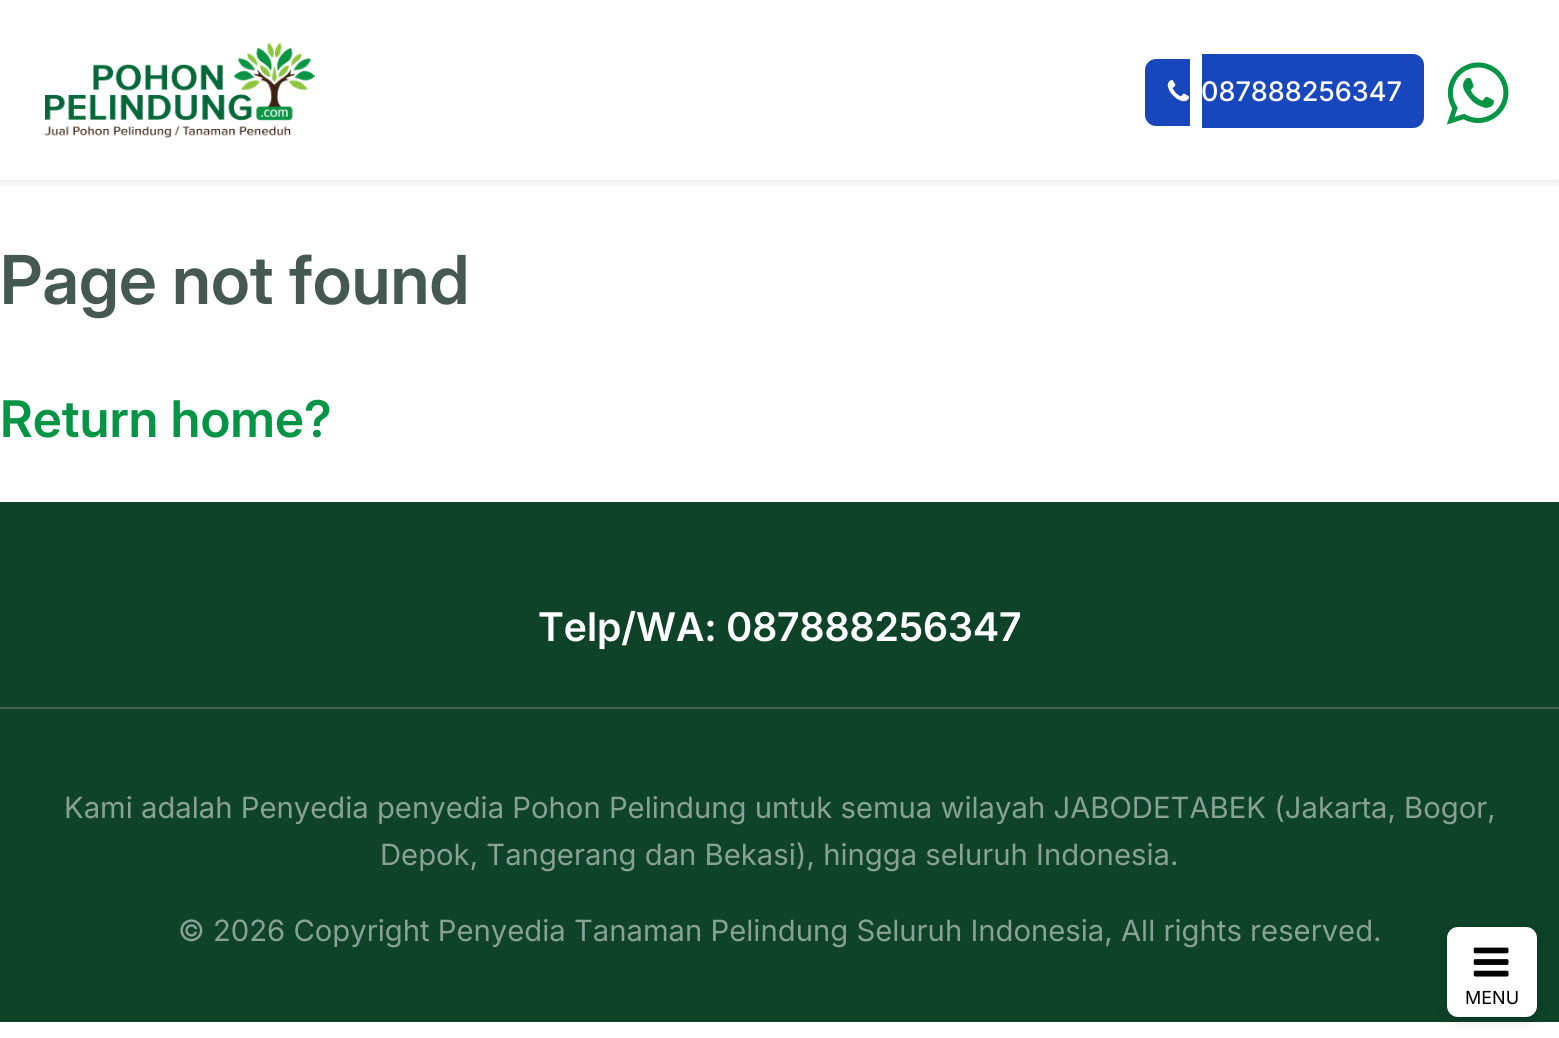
#include <cairo.h>
#include <math.h>
#include <stddef.h>

static cairo_t *c;
static void C(unsigned color){cairo_set_source_rgb(c, (color >> 16) / 255.0, (color >> 8 & 255) / 255.0, (color & 255) / 255.0);}
static void F(const char *family, double size, int italic, int bold){cairo_select_font_face(c, family, italic ? CAIRO_FONT_SLANT_ITALIC : CAIRO_FONT_SLANT_NORMAL,bold ? CAIRO_FONT_WEIGHT_BOLD : CAIRO_FONT_WEIGHT_NORMAL);cairo_set_font_size(c, size);}
static void T(double x, double y, const char *s){cairo_move_to(c, x, y);cairo_show_text(c, s);}
static void R(double x, double y, double w, double h){cairo_rectangle(c, x, y, w, h);cairo_fill(c);}
static void Q(double x, double y, double w, double h, double r){cairo_new_sub_path(c);cairo_arc(c, x + w - r, y + h - r, r, 0, M_PI / 2);cairo_arc(c, x + r, y + h - r, r, M_PI / 2, M_PI);cairo_arc(c, x + r, y + r, r, M_PI, 1.5 * M_PI);cairo_arc(c, x + w - r, y + r, r, 1.5 * M_PI, 2 * M_PI);cairo_close_path(c);}
static void S(double x, double y, double w, double h, double r, double blur, double alpha){cairo_push_group_with_content(c, CAIRO_CONTENT_ALPHA);cairo_set_operator(c, CAIRO_OPERATOR_SOURCE);for (int i = 15; i >= -15 && fmin(w, h) + blur * i / 3 > 0; i -= 2) {double e = blur * i / 6;cairo_set_source_rgba(c, 0, 0, 0, alpha * erfc((i - 1) / 8.5) / 2);Q(x - e, y - e, w + 2 * e, h + 2 * e, fmax(0, fmin(r + e + blur * .6, fmin(w, h) / 2 + e)));cairo_fill(c);}cairo_pattern_t *soft = cairo_pop_group(c);cairo_mask(c, soft);cairo_pattern_destroy(soft);}
static void I(const char *path, double x, double y, double w, double h){cairo_surface_t *image = cairo_image_surface_create_from_png(path);cairo_save(c);cairo_set_source_surface(c, image, x, y);cairo_rectangle(c, x, y, w, h);cairo_fill(c);cairo_restore(c);cairo_surface_destroy(image);}
int main(void) {
cairo_surface_t *surface = cairo_image_surface_create(CAIRO_FORMAT_RGB24, 1559, 1038);
c = cairo_create(surface);
cairo_font_options_t *options = cairo_font_options_create();
cairo_font_options_set_hint_metrics(options, CAIRO_HINT_METRICS_OFF);
cairo_font_options_set_hint_style(options, CAIRO_HINT_STYLE_NONE);
cairo_set_font_options(c, options);
cairo_set_miter_limit(c, 4);
C(0xffffff);
cairo_paint(c);
cairo_save(c);
cairo_rectangle(c,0,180,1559,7);
cairo_clip(c);
C(0x000000);
S(0,2,1559,180,0,5.5,.1);
cairo_restore(c);
I("1.png",45,42,270,96);
C(0x1846bd);
cairo_new_path(c);
cairo_move_to(c,1156,59);
cairo_line_to(c,1190,59);
cairo_line_to(c,1190,126);
cairo_line_to(c,1156,126);
cairo_curve_to(c,1150,126,1145,121,1145,115);
cairo_line_to(c,1145,70);
cairo_curve_to(c,1145,64,1150,59,1156,59);
cairo_close_path(c);
cairo_fill(c);
cairo_new_path(c);
cairo_move_to(c,1202,54);
cairo_line_to(c,1413,54);
cairo_curve_to(c,1419,54,1424,59,1424,65);
cairo_line_to(c,1424,117);
cairo_curve_to(c,1424,123,1419,128,1413,128);
cairo_line_to(c,1202,128);
cairo_close_path(c);
cairo_fill(c);
I("2.png",1167,80,22,22);
F("Inter Medium",27,0,0);
C(0xffffff);
T(1201,101,"087888256347");
I("3.png",1446,62,63,63);
F("Inter SemiBold",67.5,0,0);
C(0x465852);
T(0,304,"Page not found");
F("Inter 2 SemiBold",50.5,0,0);
C(0x039446);
T(0,437,"Return home?");
C(0x0e4229);
R(0,502,1559,520);
F("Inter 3 SemiBold",39.5,0,0);
C(0xffffff);
T(538,641,"Telp/WA: 087888256347");
C(0x3e6854);
R(0,707,1559,2);
F("Inter",29.25,0,0);
C(0x87a194);
T(64,818,"Kami adalah Penyedia penyedia Pohon Pelindung untuk semua wilayah JABODETABEK (Jakarta, Bogor,");
T(380,865,"Depok, Tangerang dan Bekasi), hingga seluruh Indonesia.");
T(178,941,"© 2026 Copyright Penyedia Tanaman Pelindung Seluruh Indonesia, All rights reserved.");
C(0x000000);
S(1447,929,90,90,11,5.5,.2);
C(0xffffff);
Q(1447,927,90,90,11);
cairo_fill(c);
I("4.png",1473,947,36,30);
F("Inter",18,0,0);
C(0x000000);
T(1465,1004,"MENU");
cairo_surface_write_to_png(surface, "o.png");
cairo_font_options_destroy(options);
cairo_destroy(c);
cairo_surface_destroy(surface);
return 0;
}
